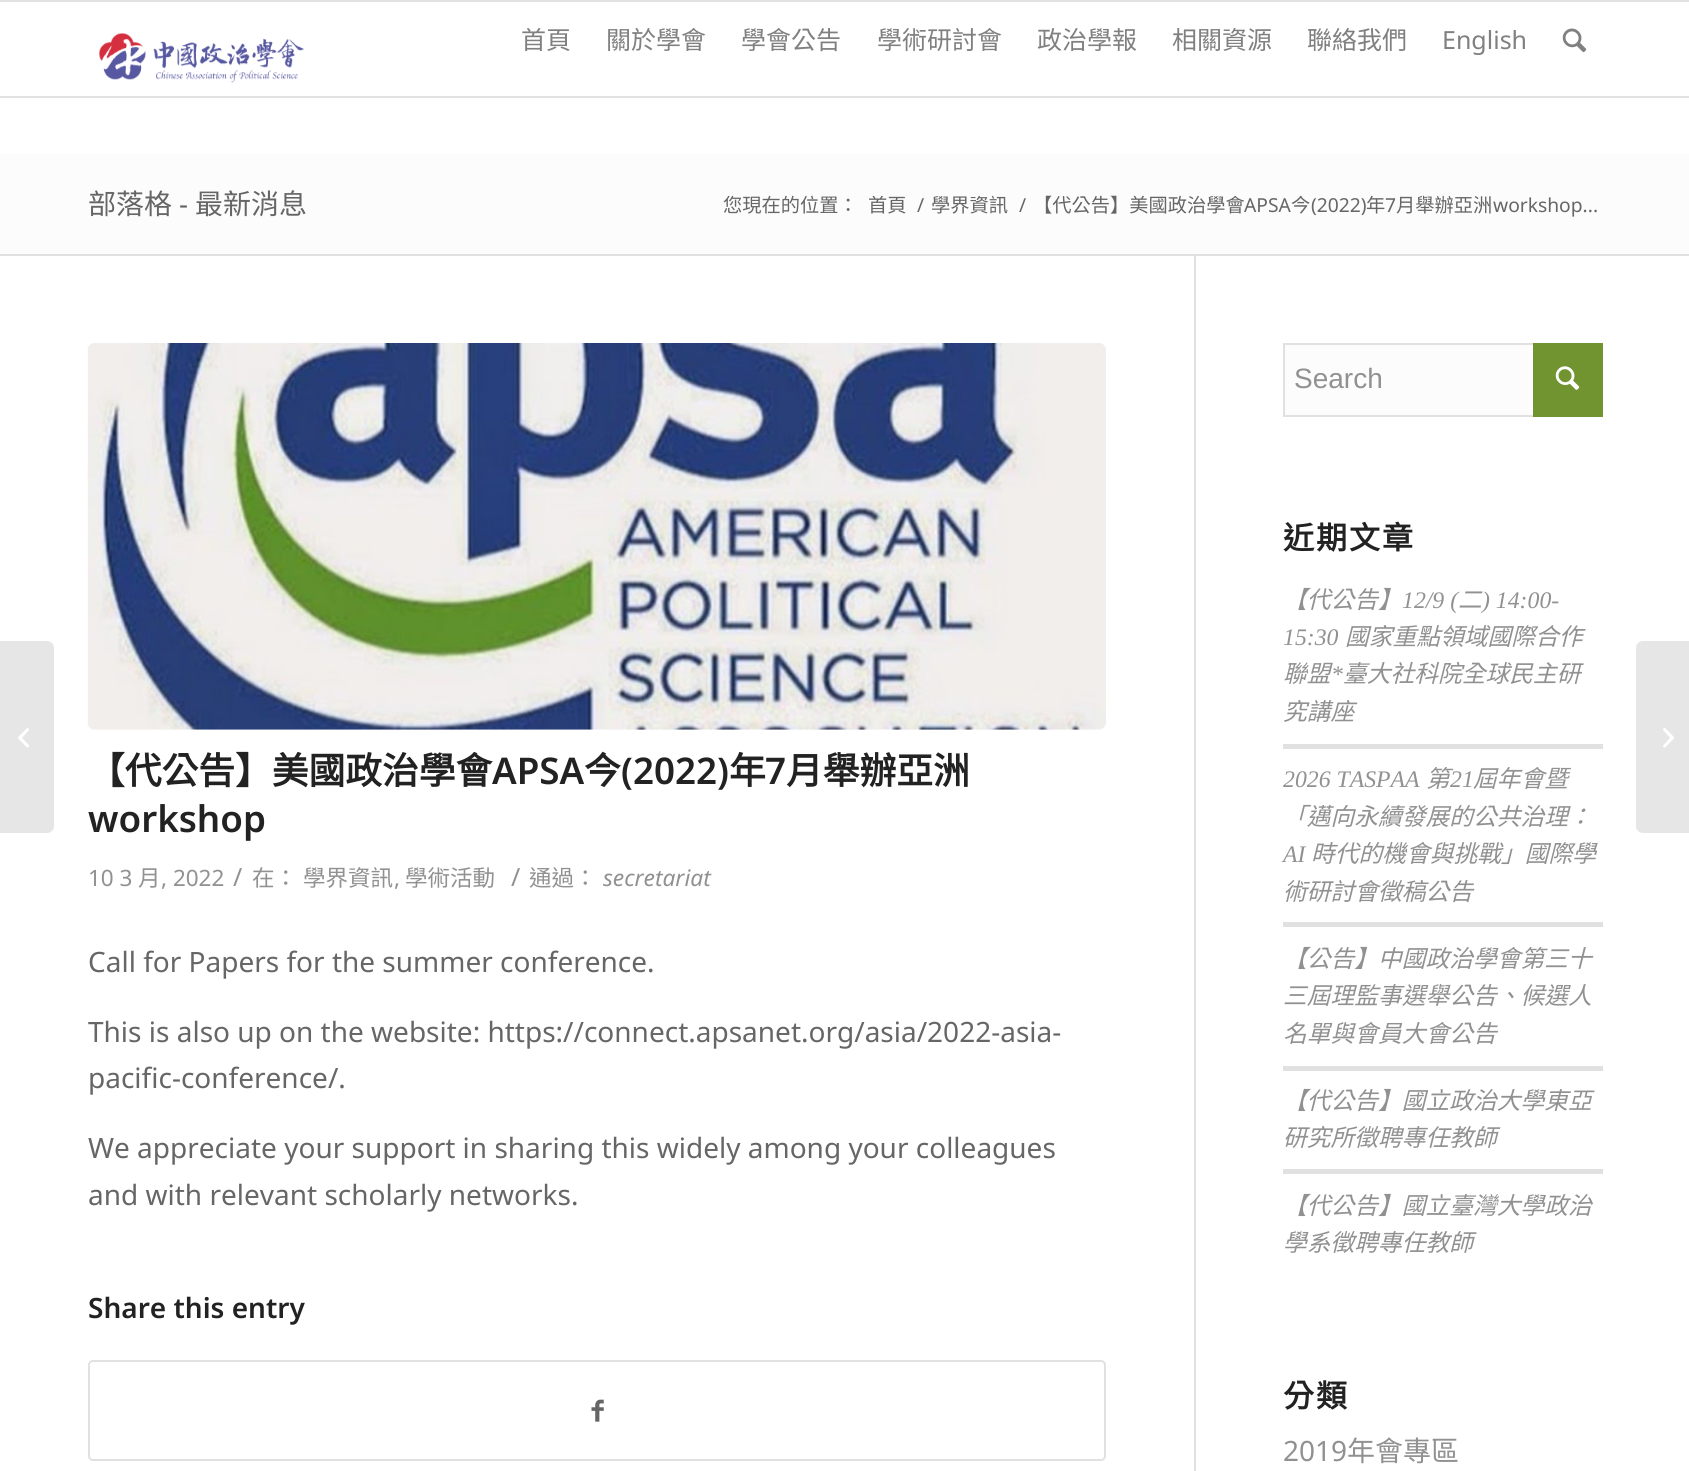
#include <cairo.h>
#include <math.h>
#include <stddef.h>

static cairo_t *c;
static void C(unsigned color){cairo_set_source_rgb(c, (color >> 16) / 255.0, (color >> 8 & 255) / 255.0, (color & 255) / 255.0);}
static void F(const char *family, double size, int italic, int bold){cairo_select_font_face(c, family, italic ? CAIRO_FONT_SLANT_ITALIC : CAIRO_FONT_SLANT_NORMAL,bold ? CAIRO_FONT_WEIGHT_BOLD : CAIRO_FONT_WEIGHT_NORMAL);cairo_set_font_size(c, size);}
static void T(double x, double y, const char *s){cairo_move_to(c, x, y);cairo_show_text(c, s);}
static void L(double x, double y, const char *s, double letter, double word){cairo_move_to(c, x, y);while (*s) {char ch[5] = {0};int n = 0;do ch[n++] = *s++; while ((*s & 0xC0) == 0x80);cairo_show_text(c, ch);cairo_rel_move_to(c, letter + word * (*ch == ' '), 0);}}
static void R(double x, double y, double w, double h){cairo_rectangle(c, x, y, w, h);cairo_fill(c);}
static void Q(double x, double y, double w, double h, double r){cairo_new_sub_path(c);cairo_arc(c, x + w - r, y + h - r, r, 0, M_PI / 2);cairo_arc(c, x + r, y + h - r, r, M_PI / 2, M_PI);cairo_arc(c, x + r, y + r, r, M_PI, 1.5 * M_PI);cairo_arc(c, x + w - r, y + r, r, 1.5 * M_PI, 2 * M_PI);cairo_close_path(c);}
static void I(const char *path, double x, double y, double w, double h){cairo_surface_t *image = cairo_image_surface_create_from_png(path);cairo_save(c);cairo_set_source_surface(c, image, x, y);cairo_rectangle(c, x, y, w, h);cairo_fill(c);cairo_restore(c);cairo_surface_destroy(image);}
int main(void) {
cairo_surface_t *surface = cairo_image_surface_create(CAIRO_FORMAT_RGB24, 1689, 1471);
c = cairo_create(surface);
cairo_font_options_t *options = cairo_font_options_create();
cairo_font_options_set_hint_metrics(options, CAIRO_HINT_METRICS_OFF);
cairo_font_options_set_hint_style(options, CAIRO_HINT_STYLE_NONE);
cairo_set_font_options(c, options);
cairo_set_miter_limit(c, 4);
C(0xffffff);
cairo_paint(c);
C(0xe1e1e1);
R(0,0,1689,2);
R(0,96,1689,2);
I("1.png",99,33,205,50);
F("Noto Sans CJK TC",25,0,0);
C(0x808080);
T(521,49,"首頁");
T(606,49,"關於學會");
T(741,49,"學會公告");
T(877,49,"學術研討會");
T(1037,49,"政治學報");
T(1172,49,"相關資源");
T(1307,49,"聯絡我們");
F("Noto Sans",25,0,0);
T(1442,49,"English");
I("2.png",1562,28,25,25);
C(0xe6e6e6);
cairo_new_path(c);
cairo_move_to(c,0,641);
cairo_line_to(c,47,641);
cairo_curve_to(c,51,641,54,644,54,648);
cairo_line_to(c,54,826);
cairo_curve_to(c,54,830,51,833,47,833);
cairo_line_to(c,0,833);
cairo_close_path(c);
cairo_fill(c);
I("3.png",18,728,11,20);
C(0xfcfcfc);
R(0,154,1689,100);
F("Noto Sans CJK TC",28,0,0);
C(0x666666);
T(88,214,"部落格");
F("Noto Sans",28,0,0);
T(179,214,"-");
F("Noto Sans CJK TC",28,0,0);
T(195,214,"最新消息");
F("Noto Sans CJK TC",19.25,0,0);
T(723,212,"您現在的位置：");
T(868,212,"首頁");
F("Noto Sans",19.25,0,0);
T(917,212,"/");
F("Noto Sans CJK TC",19.25,0,0);
T(931,212,"學界資訊");
F("Noto Sans",19.25,0,0);
T(1019,212,"/");
F("Noto Sans CJK TC",19.25,0,0);
T(1033,212,"【代公告】美國政治學會");
F("Noto Sans",19.25,0,0);
T(1244,212,"APSA");
F("Noto Sans CJK TC",19.25,0,0);
T(1291,212,"今");
F("Noto Sans",19.25,0,0);
T(1311,212,"(2022)");
F("Noto Sans CJK TC",19.25,0,0);
T(1366,212,"年");
F("Noto Sans",19.25,0,0);
T(1385,212,"7");
F("Noto Sans CJK TC",19.25,0,0);
T(1396,212,"月舉辦亞洲");
F("Noto Sans",19.25,0,0);
T(1493,212,"workshop...");
C(0xe1e1e1);
R(0,254,1689,2);
R(1194,256,2,1215);
I("4.png",87,343,1019,387);
F("Noto Sans CJK TC",36.75,0,1);
C(0x222222);
T(88,784,"【代公告】美國政治學會");
F("Noto Sans SemiBold",36.75,0,0);
T(492,784,"APSA");
F("Noto Sans CJK TC",36.75,0,1);
T(584,784,"今");
F("Noto Sans SemiBold",36.75,0,0);
T(621,784,"(2022)");
F("Noto Sans CJK TC",36.75,0,1);
T(729,784,"年");
F("Noto Sans SemiBold",36.75,0,0);
T(765,784,"7");
F("Noto Sans CJK TC",36.75,0,1);
T(786,784,"月舉辦亞洲");
F("Noto Sans SemiBold",36.75,0,0);
T(88,832,"workshop");
F("Noto Sans",22.5,0,0);
C(0x919191);
T(88,886,"10 3");
F("Noto Sans CJK TC",22.5,0,0);
T(138,886,"月");
F("Noto Sans",22.5,0,0);
T(161,886,", 2022");
F("Noto Sans",25,0,0);
T(233,886,"/");
F("Noto Sans CJK TC",22.5,0,0);
T(252,886,"在：");
T(303,886,"學界資訊");
F("Noto Sans",22.5,0,0);
T(394,886,",");
F("Noto Sans CJK TC",22.5,0,0);
T(405,886,"學術活動");
F("Noto Sans",25,0,0);
T(511,886,"/");
F("Noto Sans CJK TC",22.5,0,0);
T(529,886,"通過：");
F("Noto Sans",22.75,1,0);
T(603,886,"secretariat");
F("Noto Sans",28,0,0);
C(0x666666);
T(88,972,"Call for Papers for the summer conference.");
T(88,1042,"This is also up on the website: https://connect.apsanet.org/asia/2022-asia-");
T(88,1088,"pacific-conference/.");
T(88,1158,"We appreciate your support in sharing this widely among your colleagues");
T(88,1205,"and with relevant scholarly networks.");
F("Noto Sans SemiBold",28,0,0);
C(0x222222);
T(88,1318,"Share this entry");
Q(89,1361,1016,99,4);
C(0xe1e1e1);
cairo_stroke(c);
I("5.png",591,1399,13,23);
C(0xfcfcfc);
R(1285,345,248,70);
cairo_rectangle(c,1284,344,318,72);
C(0xe1e1e1);
cairo_stroke(c);
F("Liberation Sans",28,0,0);
C(0x919191);
T(1294,388,"Search");
C(0x719430);
R(1533,343,70,74);
I("6.png",1555,366,25,24);
F("Noto Sans CJK TC",31,0,1);
C(0x222222);
L(1283,549,"近期文章",2,0);
F("Noto Sans CJK TC",23.75,1,0);
C(0x919191);
T(1283,608,"【代公告】");
F("Liberation Serif",23.75,1,0);
T(1402,608,"12/9 (");
F("Noto Sans CJK TC",23.75,1,0);
T(1458,608,"二");
F("Liberation Serif",23.75,1,0);
T(1482,608,") 14:00-");
T(1283,645,"15:30");
F("Noto Sans CJK TC",23.75,1,0);
T(1345,645,"國家重點領域國際合作");
T(1283,682,"聯盟");
F("Liberation Serif",23.75,1,0);
T(1331,682,"*");
F("Noto Sans CJK TC",23.75,1,0);
T(1343,682,"臺大社科院全球民主研");
T(1283,720,"究講座");
C(0xe1e1e1);
R(1283,744,320,5);
F("Liberation Serif",23.75,1,0);
C(0x919191);
T(1283,787,"2026 TASPAA");
F("Noto Sans CJK TC",23.75,1,0);
T(1426,787,"第");
F("Liberation Serif",23.75,1,0);
T(1450,787,"21");
F("Noto Sans CJK TC",23.75,1,0);
T(1473,787,"屆年會暨");
T(1283,825,"「邁向永續發展的公共治理：");
F("Liberation Serif",23.75,1,0);
T(1283,862,"AI");
F("Noto Sans CJK TC",23.75,1,0);
T(1311,862,"時代的機會與挑戰」國際學");
T(1283,900,"術研討會徵稿公告");
C(0xe1e1e1);
R(1283,922,320,5);
C(0x919191);
T(1283,967,"【公告】中國政治學會第三十");
T(1283,1004,"三屆理監事選舉公告、候選人");
T(1283,1042,"名單與會員大會公告");
C(0xe1e1e1);
R(1283,1066,320,5);
C(0x919191);
T(1283,1109,"【代公告】國立政治大學東亞");
T(1283,1146,"研究所徵聘專任教師");
C(0xe1e1e1);
R(1283,1169,320,5);
C(0x919191);
T(1283,1214,"【代公告】國立臺灣大學政治");
T(1283,1251,"學系徵聘專任教師");
F("Noto Sans CJK TC",31,0,1);
C(0x222222);
L(1283,1407,"分類",2,0);
F("Noto Sans",28,0,0);
C(0x919191);
T(1283,1461,"2019");
F("Noto Sans CJK TC",28,0,0);
T(1347,1461,"年會專區");
C(0xe6e6e6);
cairo_new_path(c);
cairo_move_to(c,1643,641);
cairo_line_to(c,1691,641);
cairo_line_to(c,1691,833);
cairo_line_to(c,1643,833);
cairo_curve_to(c,1639,833,1636,830,1636,826);
cairo_line_to(c,1636,648);
cairo_curve_to(c,1636,644,1639,641,1643,641);
cairo_close_path(c);
cairo_fill(c);
I("7.png",1663,728,11,20);
cairo_surface_write_to_png(surface, "o.png");
cairo_font_options_destroy(options);
cairo_destroy(c);
cairo_surface_destroy(surface);
return 0;
}
